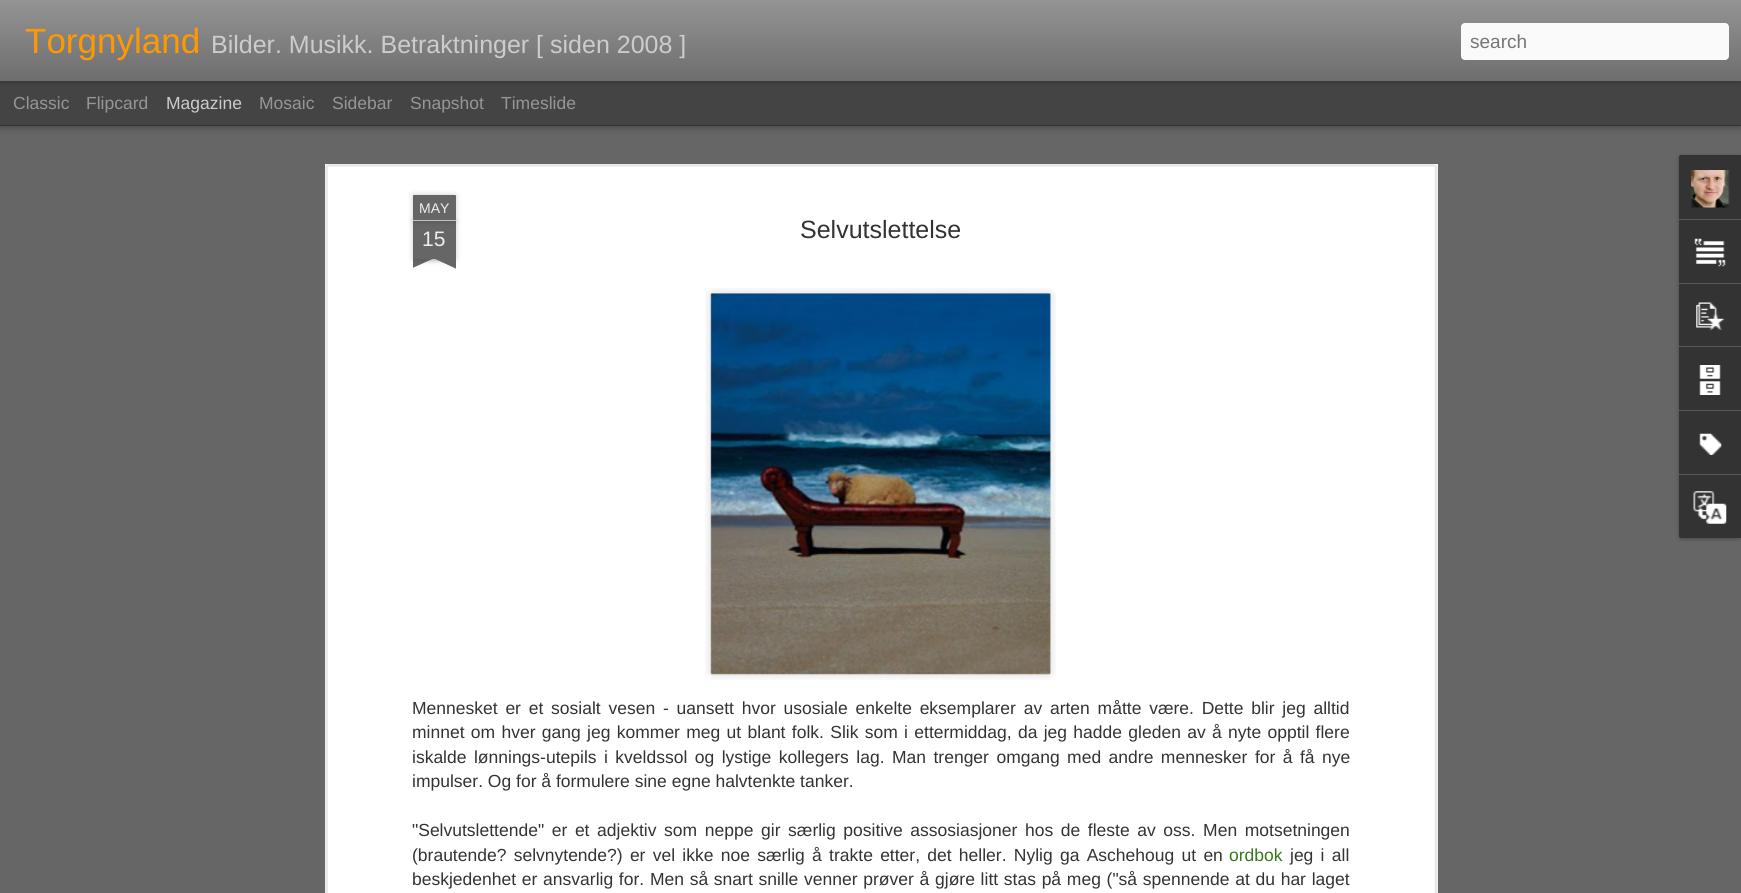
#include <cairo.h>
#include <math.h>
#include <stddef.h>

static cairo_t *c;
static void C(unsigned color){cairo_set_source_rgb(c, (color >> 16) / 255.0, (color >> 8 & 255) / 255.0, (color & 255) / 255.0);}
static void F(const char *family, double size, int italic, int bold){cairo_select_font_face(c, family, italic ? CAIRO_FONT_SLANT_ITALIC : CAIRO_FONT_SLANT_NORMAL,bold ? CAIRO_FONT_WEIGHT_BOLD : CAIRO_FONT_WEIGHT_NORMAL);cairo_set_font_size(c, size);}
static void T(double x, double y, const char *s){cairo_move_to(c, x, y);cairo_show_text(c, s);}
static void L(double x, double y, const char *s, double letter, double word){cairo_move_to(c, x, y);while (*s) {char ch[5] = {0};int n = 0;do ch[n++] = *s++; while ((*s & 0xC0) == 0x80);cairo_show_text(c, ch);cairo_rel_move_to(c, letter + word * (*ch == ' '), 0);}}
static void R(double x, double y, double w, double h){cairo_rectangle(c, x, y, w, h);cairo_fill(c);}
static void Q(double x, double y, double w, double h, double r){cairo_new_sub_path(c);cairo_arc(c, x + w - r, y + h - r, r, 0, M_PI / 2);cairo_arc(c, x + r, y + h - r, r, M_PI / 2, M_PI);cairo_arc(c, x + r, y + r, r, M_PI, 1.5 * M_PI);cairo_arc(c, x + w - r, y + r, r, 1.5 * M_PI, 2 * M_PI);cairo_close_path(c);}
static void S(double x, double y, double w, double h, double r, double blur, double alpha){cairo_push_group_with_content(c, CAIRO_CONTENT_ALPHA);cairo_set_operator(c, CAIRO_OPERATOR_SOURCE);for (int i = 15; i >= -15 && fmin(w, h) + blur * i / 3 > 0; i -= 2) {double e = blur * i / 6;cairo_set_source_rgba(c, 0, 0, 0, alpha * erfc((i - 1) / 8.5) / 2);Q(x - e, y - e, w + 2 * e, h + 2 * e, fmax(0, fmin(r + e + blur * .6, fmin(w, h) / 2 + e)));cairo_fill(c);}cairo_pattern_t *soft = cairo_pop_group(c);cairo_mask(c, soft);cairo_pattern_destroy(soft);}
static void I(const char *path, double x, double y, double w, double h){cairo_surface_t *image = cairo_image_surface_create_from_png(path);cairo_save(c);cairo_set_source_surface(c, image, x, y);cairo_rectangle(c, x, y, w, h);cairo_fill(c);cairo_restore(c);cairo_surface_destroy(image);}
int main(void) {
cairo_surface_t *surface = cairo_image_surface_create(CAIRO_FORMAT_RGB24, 1741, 893);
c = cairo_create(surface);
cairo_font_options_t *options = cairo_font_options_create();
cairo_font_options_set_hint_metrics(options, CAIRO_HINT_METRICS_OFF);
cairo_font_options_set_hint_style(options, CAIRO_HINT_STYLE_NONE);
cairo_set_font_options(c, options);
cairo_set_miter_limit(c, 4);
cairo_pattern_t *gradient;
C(0x444444);
cairo_paint(c);
C(0x666666);
R(0,126,1741,767);
C(0x000000);
S(0,81,1741,44,0,5,.5);
C(0x444444);
R(0,81,1741,44);
C(0x000000);
S(0,0,1741,81,0,3,.3);
gradient = cairo_pattern_create_linear(0,0,0,81);
cairo_pattern_add_color_stop_rgba(gradient,0,0.58,0.58,0.58,1);
cairo_pattern_add_color_stop_rgba(gradient,1,0.431,0.431,0.431,1);
cairo_set_source(c,gradient);
cairo_pattern_destroy(gradient);
R(0,0,1741,81);
F("Liberation Sans",35,0,0);
C(0xff9900);
T(25,53,"Torgnyland");
F("Liberation Sans",25,0,0);
C(0xcccccc);
T(211,53,"Bilder. Musikk. Betraktninger [ siden 2008 ]");
C(0xfafafa);
Q(1461,23,268,37,4);
cairo_fill(c);
F("Liberation Sans",19,0,0);
C(0x757575);
T(1470,48,"search");
F("Liberation Sans",17.5,0,0);
C(0x969696);
T(13,109,"Classic");
T(86,109,"Flipcard");
C(0xcccccc);
T(166,109,"Magazine");
C(0x969696);
T(259,109,"Mosaic");
T(332,109,"Sidebar");
T(410,109,"Snapshot");
T(501,109,"Timeslide");
C(0xffffff);
R(325,164,1113,729);
I("1.png",325,164,1113,729);
C(0x000000);
S(413,221,43,38,0,3,.2);
C(0x666666);
R(413,221,43,38);
C(0x000000);
S(413,195,43,26,1,3,.2);
C(0x666666);
cairo_new_path(c);
cairo_move_to(c,414,195);
cairo_line_to(c,455,195);
cairo_curve_to(c,455.5,195,456,195.5,456,196);
cairo_line_to(c,456,221);
cairo_line_to(c,413,221);
cairo_line_to(c,413,196);
cairo_curve_to(c,413,195.5,413.5,195,414,195);
cairo_close_path(c);
cairo_fill(c);
C(0xc2c2c2);
R(413,220,43,1);
F("Liberation Sans",14,0,0);
C(0xeeeeee);
T(419,213,"MAY");
F("Liberation Sans",21,0,0);
T(422,246,"15");
cairo_save(c);
cairo_rectangle(c,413,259,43,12);
cairo_clip(c);
C(0x000000);
S(401,246,63,13,0,3,.2);
cairo_restore(c);
cairo_save(c);
cairo_rectangle(c,413,259,43,12);
cairo_clip(c);
C(0x666666);
cairo_new_path(c);
cairo_move_to(c,401,260);
cairo_line_to(c,458,234);
cairo_line_to(c,463,245);
cairo_line_to(c,406,271);
cairo_close_path(c);
cairo_fill(c);
cairo_restore(c);
cairo_save(c);
cairo_rectangle(c,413,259,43,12);
cairo_clip(c);
C(0x000000);
S(405,246,63,13,0,3,.2);
cairo_restore(c);
cairo_save(c);
cairo_rectangle(c,413,259,43,12);
cairo_clip(c);
C(0x666666);
cairo_new_path(c);
cairo_move_to(c,410,234);
cairo_line_to(c,467,260);
cairo_line_to(c,461,271);
cairo_line_to(c,405,245);
cairo_close_path(c);
cairo_fill(c);
cairo_restore(c);
F("Liberation Sans",25,0,0);
C(0x333333);
T(800,238,"Selvutslettelse");
I("2.png",705,288,351,392);
I("3.png",710,293,341,382);
F("Liberation Sans",17.5,0,0);
L(412,714,"Mennesket er et sosialt vesen - uansett hvor usosiale enkelte eksemplarer av arten måtte være. Dette blir jeg alltid",0,2.9);
L(412,738,"minnet om hver gang jeg kommer meg ut blant folk. Slik som i ettermiddag, da jeg hadde gleden av å nyte opptil flere",0,1.45);
L(412,763,"iskalde lønnings-utepils i kveldssol og lystige kollegers lag. Man trenger omgang med andre mennesker for å få nye",0,2.6);
T(412,787,"impulser. Og for å formulere sine egne halvtenkte tanker.");
L(412,836,"\"Selvutslettende\" er et adjektiv som neppe gir særlig positive assosiasjoner hos de fleste av oss. Men motsetningen",0,2.75);
L(412,861,"(brautende? selvnytende?) er vel ikke noe særlig å trakte etter, det heller. Nylig ga Aschehoug ut en",0,2.4);
C(0x38761d);
T(1229,861,"ordbok");
C(0x333333);
L(1290,861,"jeg i all",0,2.4);
L(412,885,"beskjedenhet er ansvarlig for. Men så snart snille venner prøver å gjøre litt stas på meg (\"så spennende at du har laget",0,.85);
C(0x000000);
S(1679,156,62,383,2.5,2,.3);
C(0x333333);
cairo_new_path(c);
cairo_move_to(c,1681.5,155);
cairo_line_to(c,1741,155);
cairo_line_to(c,1741,538);
cairo_line_to(c,1681.5,538);
cairo_curve_to(c,1680,538,1679,537,1679,535.5);
cairo_line_to(c,1679,157.5);
cairo_curve_to(c,1679,156,1680,155,1681.5,155);
cairo_close_path(c);
cairo_fill(c);
cairo_new_path(c);
cairo_move_to(c,1681.5,155);
cairo_line_to(c,1741,155);
cairo_line_to(c,1741,219);
cairo_line_to(c,1679,219);
cairo_line_to(c,1679,157.5);
cairo_curve_to(c,1679,156,1680,155,1681.5,155);
cairo_close_path(c);
cairo_fill(c);
I("4.png",1691,170,39,38);
C(0x585858);
R(1679,219,62,1);
I("5.png",1694,238,32,29);
R(1679,283,62,1);
I("6.png",1696,302,29,28);
R(1679,346,62,1);
I("7.png",1699,365,22,30);
R(1679,410,62,1);
I("8.png",1699,433,23,22);
C(0x333333);
cairo_new_path(c);
cairo_move_to(c,1679,474);
cairo_line_to(c,1741,474);
cairo_line_to(c,1741,538);
cairo_line_to(c,1681.5,538);
cairo_curve_to(c,1680,538,1679,537,1679,535.5);
cairo_close_path(c);
cairo_fill(c);
C(0x585858);
R(1679,474,62,1);
I("9.png",1693,491,34,33);
cairo_surface_write_to_png(surface, "o.png");
cairo_font_options_destroy(options);
cairo_destroy(c);
cairo_surface_destroy(surface);
return 0;
}
